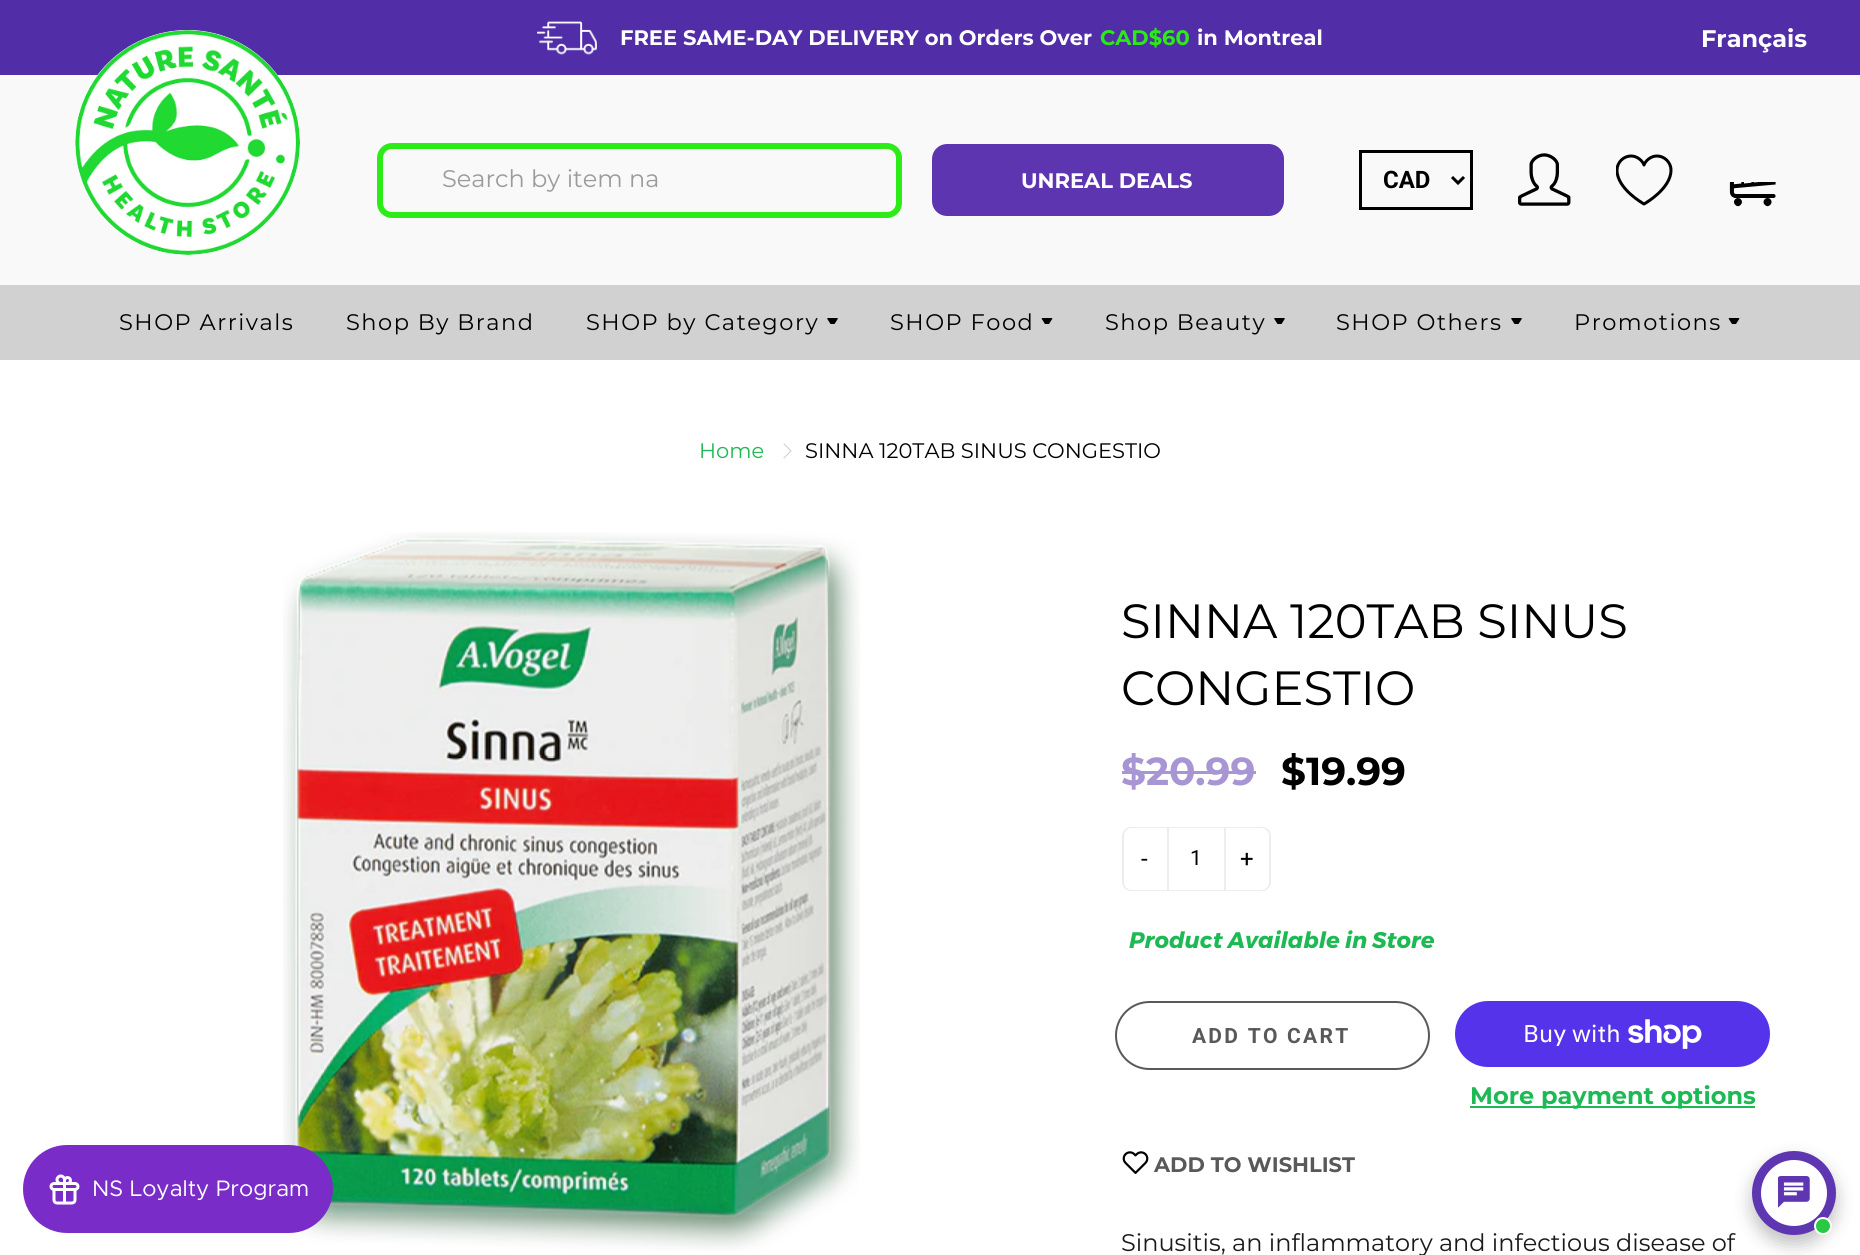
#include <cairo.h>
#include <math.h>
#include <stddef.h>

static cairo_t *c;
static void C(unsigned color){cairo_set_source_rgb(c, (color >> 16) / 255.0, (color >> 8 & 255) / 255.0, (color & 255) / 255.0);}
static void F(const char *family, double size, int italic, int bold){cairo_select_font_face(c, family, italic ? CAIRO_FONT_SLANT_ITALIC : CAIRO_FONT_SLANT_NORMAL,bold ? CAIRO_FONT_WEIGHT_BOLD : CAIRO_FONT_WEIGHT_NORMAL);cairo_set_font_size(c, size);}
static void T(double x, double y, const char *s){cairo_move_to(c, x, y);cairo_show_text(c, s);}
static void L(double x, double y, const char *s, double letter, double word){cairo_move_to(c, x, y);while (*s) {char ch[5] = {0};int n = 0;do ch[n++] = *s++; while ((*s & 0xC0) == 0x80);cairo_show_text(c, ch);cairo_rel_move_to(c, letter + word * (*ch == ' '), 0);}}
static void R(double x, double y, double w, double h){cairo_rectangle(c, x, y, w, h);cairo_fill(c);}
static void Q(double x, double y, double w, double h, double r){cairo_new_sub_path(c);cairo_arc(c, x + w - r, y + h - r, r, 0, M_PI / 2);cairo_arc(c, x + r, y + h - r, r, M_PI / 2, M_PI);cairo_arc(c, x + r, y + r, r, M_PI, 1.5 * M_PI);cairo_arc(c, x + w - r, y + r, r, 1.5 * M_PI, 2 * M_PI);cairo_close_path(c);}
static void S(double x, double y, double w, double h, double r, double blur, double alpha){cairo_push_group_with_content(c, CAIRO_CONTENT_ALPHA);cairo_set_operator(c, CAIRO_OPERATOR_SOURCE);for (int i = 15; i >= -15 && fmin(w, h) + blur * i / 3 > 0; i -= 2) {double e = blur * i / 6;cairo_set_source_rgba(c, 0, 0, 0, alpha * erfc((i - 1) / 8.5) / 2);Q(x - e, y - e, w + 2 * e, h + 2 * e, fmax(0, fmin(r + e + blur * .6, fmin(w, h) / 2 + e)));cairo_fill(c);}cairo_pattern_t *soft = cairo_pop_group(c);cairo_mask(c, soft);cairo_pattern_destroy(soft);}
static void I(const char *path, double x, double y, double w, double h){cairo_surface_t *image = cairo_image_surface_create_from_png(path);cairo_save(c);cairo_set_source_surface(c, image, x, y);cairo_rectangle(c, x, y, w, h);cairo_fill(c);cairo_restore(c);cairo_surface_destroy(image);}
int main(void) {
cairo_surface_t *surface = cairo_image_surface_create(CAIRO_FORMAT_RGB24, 1860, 1255);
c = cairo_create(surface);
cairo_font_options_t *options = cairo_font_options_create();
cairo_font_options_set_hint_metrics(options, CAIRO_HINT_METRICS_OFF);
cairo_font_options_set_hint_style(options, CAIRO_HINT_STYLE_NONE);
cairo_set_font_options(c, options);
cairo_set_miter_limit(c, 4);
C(0xffffff);
cairo_paint(c);
C(0x512da8);
R(0,0,1860,75);
I("1.png",537,21,60,34);
F("Montserrat",21,0,1);
C(0xffffff);
T(620,45,"FREE SAME-DAY DELIVERY on Orders Over");
C(0x2beb17);
T(1100,45,"CAD$60");
C(0xffffff);
T(1197,45,"in Montreal");
C(0xf9f9f9);
R(0,75,1860,210);
C(0xffffff);
cairo_new_path(c);
cairo_arc(c,187.5,142.5,112.5,0,2 * M_PI);
cairo_fill(c);
I("2.png",75,30,225,225);
Q(380,146,519,69,12);
C(0x2ceb16);
cairo_set_line_width(c,6);
cairo_stroke(c);
F("Montserrat",24,0,0);
C(0x9b9b9b);
T(442,187,"Search by item na");
C(0x5e35b1);
Q(935,147,346,66,12);
cairo_fill_preserve(c);
cairo_stroke(c);
F("Montserrat",21,0,1);
C(0xffffff);
T(1021,188,"UNREAL DEALS");
cairo_rectangle(c,1360.5,151.5,111,57);
C(0x000000);
cairo_set_line_width(c,3);
cairo_stroke(c);
cairo_new_path(c);
cairo_move_to(c,1452,177);
cairo_line_to(c,1458,183);
cairo_line_to(c,1464,177);
cairo_stroke(c);
F("Roboto",24,0,1);
T(1383,188,"CAD");
I("3.png",1518,153,53,53);
I("4.png",1616,154,57,52);
I("5.png",1729,182,47,25);
C(0xd1d1d1);
R(0,285,1860,75);
F("Montserrat",22.5,0,0);
C(0x000000);
L(119,330,"SHOP Arrivals",1.5,0);
L(346,330,"Shop By Brand",1.5,0);
L(586,330,"SHOP by Category",1.5,0);
cairo_new_path(c);
cairo_move_to(c,828,318);
cairo_line_to(c,827,318.5);
cairo_line_to(c,830.5,324);
cairo_line_to(c,834.5,324);
cairo_line_to(c,838,318.5);
cairo_curve_to(c,837.5,318,837,318,835.5,318);
cairo_close_path(c);
cairo_fill(c);
L(890,330,"SHOP Food",1.5,0);
cairo_new_path(c);
cairo_move_to(c,1042.5,318);
cairo_line_to(c,1041.5,318.5);
cairo_line_to(c,1045,324);
cairo_line_to(c,1049,324);
cairo_line_to(c,1052.5,318.5);
cairo_curve_to(c,1052,318,1051.5,318,1050,318);
cairo_close_path(c);
cairo_fill(c);
L(1105,330,"Shop Beauty",1.5,0);
cairo_new_path(c);
cairo_move_to(c,1275,318);
cairo_line_to(c,1274,318.5);
cairo_line_to(c,1277.5,324);
cairo_line_to(c,1281.5,324);
cairo_line_to(c,1285,318.5);
cairo_curve_to(c,1284.5,318,1284,318,1282.5,318);
cairo_close_path(c);
cairo_fill(c);
L(1336,330,"SHOP Others",1.5,0);
cairo_new_path(c);
cairo_move_to(c,1512,318);
cairo_line_to(c,1511,318.5);
cairo_line_to(c,1514.5,324);
cairo_line_to(c,1518.5,324);
cairo_line_to(c,1522,318.5);
cairo_curve_to(c,1521.5,318,1521,318,1519.5,318);
cairo_close_path(c);
cairo_fill(c);
L(1574,330,"Promotions",1.5,0);
cairo_new_path(c);
cairo_move_to(c,1729.5,318);
cairo_line_to(c,1728.5,318.5);
cairo_line_to(c,1732,324);
cairo_line_to(c,1736,324);
cairo_line_to(c,1739.5,318.5);
cairo_curve_to(c,1739,318,1738.5,318,1737,318);
cairo_close_path(c);
cairo_fill(c);
F("Montserrat",21,0,0);
C(0x1db954);
T(699,458,"Home");
I("6.png",783,443,9,16);
C(0x000000);
T(805,458,"SINNA 120TAB SINUS CONGESTIO");
I("7.png",283,532,577,719);
F("Montserrat",48,0,0);
T(1121,638,"SINNA 120TAB SINUS");
T(1121,705,"CONGESTIO");
F("Montserrat",39,0,1);
C(0xa896d4);
T(1121,785,"$20.99");
R(1122,771,134,3);
C(0x000000);
T(1281,785,"$19.99");
Q(1123,828,147,62,8);
C(0xededed);
cairo_set_line_width(c,2);
cairo_stroke(c);
C(0xffffff);
cairo_new_path(c);
cairo_move_to(c,1132,828);
cairo_line_to(c,1167,828);
cairo_line_to(c,1167,890);
cairo_line_to(c,1132,890);
cairo_curve_to(c,1127.5,890,1124,886.5,1124,882);
cairo_line_to(c,1124,836);
cairo_curve_to(c,1124,831.5,1127.5,828,1132,828);
cairo_close_path(c);
cairo_fill(c);
F("Roboto",24,0,0);
C(0x000000);
T(1141,867,"-");
C(0xffffff);
R(1169,828,55,62);
C(0xededed);
R(1224,828,2,62);
R(1167,828,2,62);
F("Roboto",21,0,0);
C(0x000000);
T(1190,865,"1");
C(0xffffff);
cairo_new_path(c);
cairo_move_to(c,1226,828);
cairo_line_to(c,1261,828);
cairo_curve_to(c,1265.5,828,1269,831.5,1269,836);
cairo_line_to(c,1269,882);
cairo_curve_to(c,1269,886.5,1265.5,890,1261,890);
cairo_line_to(c,1226,890);
cairo_close_path(c);
cairo_fill(c);
F("Roboto",24,0,0);
C(0x000000);
T(1240,867,"+");
F("Montserrat",22.5,1,1);
C(0x1db954);
T(1129,948,"Product Available in Store");
Q(1116,1002,313,67,33.5);
C(0x595959);
cairo_stroke(c);
F("Roboto",21,0,1);
L(1192,1043,"ADD TO CART",2.25,0);
C(0x5433eb);
Q(1455,1001,315,66,33);
cairo_fill(c);
F("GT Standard",24,0,0);
C(0xffffff);
T(1523,1042,"Buy with");
I("8.png",1628,1019,74,30);
C(0x1db954);
R(1470,1106,285,2);
F("Montserrat",24,0,1);
T(1470,1104,"More payment options");
I("9.png",1122,1151,27,23);
F("Montserrat",21,0,1);
C(0x595959);
T(1154,1172,"ADD TO WISHLIST");
F("Montserrat",24,0,0);
C(0x1a1a1a);
T(1121,1251,"Sinusitis, an inflammatory and infectious disease of");
F("Montserrat",24,0,1);
C(0xffffff);
T(1701,47,"Français");
C(0x7a2cc9);
Q(23,1145,310,88,44);
cairo_fill(c);
I("10.png",49,1174,31,31);
F("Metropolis",22.5,0,0);
C(0xffffff);
T(92,1196,"NS Loyalty Program");
C(0x000000);
S(1752,1160,84,84,42,9,.25);
C(0x5f36b1);
cairo_arc(c,1794,1193,42,0,2 * M_PI);
cairo_fill(c);
C(0xffffff);
cairo_arc(c,1794,1193,33,0,2 * M_PI);
cairo_fill(c);
I("11.png",1778,1176,32,32);
C(0x27ca40);
cairo_arc(c,1823,1226,8,0,2 * M_PI);
cairo_fill_preserve(c);
C(0xffffff);
cairo_stroke(c);
cairo_surface_write_to_png(surface, "o.png");
cairo_font_options_destroy(options);
cairo_destroy(c);
cairo_surface_destroy(surface);
return 0;
}
